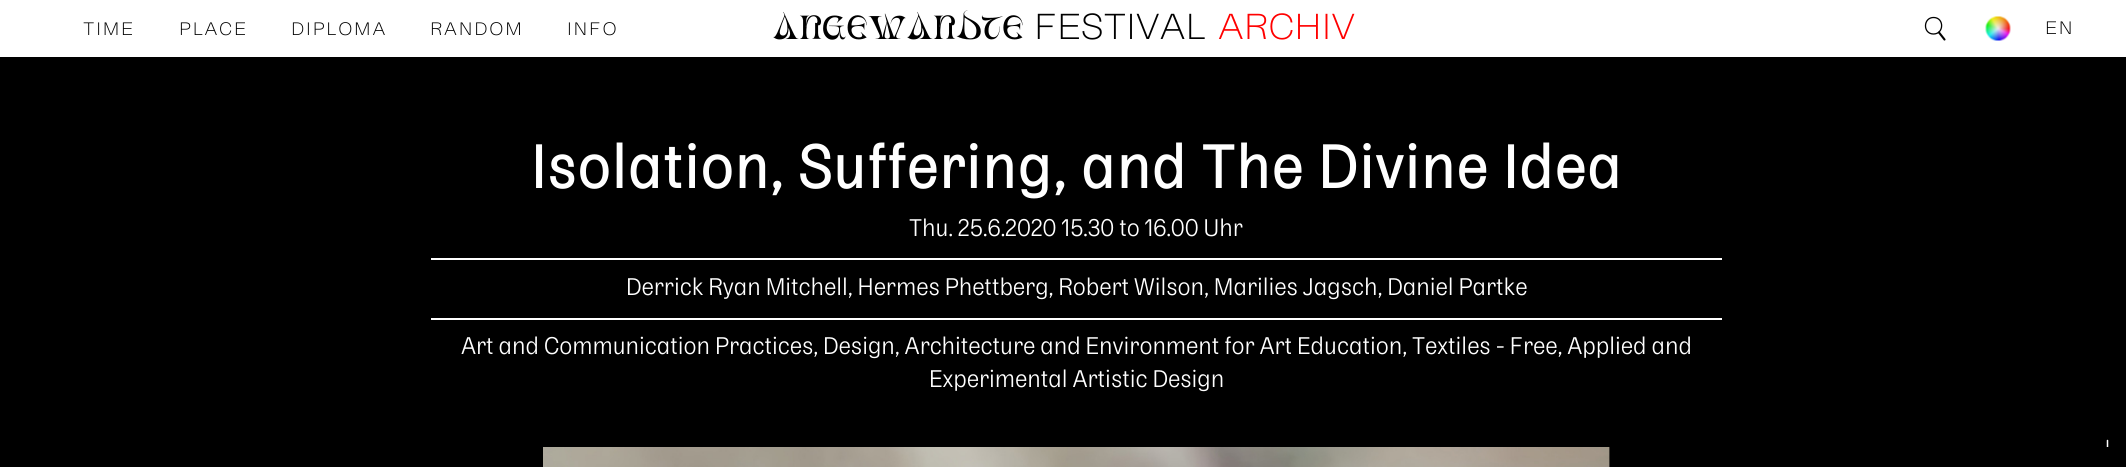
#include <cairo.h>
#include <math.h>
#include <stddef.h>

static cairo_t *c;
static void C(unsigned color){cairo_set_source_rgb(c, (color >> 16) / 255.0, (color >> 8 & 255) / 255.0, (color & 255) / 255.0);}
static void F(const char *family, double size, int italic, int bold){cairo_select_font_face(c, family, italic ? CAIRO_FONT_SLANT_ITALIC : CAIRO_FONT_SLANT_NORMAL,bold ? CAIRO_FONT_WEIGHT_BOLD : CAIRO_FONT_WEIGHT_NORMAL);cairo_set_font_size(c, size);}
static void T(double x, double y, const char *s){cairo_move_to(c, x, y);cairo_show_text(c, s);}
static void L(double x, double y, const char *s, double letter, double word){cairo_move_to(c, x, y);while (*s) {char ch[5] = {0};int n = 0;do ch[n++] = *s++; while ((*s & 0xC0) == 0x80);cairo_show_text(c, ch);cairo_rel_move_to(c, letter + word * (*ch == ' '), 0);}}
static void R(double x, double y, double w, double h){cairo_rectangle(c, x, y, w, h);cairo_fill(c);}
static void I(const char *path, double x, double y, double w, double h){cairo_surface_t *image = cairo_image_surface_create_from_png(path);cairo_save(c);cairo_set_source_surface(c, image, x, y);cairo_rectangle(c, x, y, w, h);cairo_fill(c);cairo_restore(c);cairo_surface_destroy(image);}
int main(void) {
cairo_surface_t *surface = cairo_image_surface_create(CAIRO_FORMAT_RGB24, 2126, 467);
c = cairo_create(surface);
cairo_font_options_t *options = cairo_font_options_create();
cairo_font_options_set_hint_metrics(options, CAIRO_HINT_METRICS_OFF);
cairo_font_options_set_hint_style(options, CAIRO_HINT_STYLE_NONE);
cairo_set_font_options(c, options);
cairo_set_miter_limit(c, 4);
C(0x000000);
cairo_paint(c);
C(0xffffff);
R(0,0,2126,57);
F("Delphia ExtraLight",18,0,0);
C(0x000000);
L(83,35,"TIME",1.8,0);
L(179,35,"PLACE",1.8,0);
L(291,35,"DIPLOMA",1.8,0);
L(430,35,"RANDOM",1.8,0);
L(567,35,"INFO",1.8,0);
I("1.png",773,10,250,30);
F("Delphia ExtraLight",36,0,0);
T(1034,39,"FESTIVAL");
C(0xff0000);
T(1218,39,"ARCHIV");
cairo_new_path(c);
cairo_move_to(c,1933.5,34);
cairo_curve_to(c,1944,34,1944.5,18,1934,17.5);
cairo_curve_to(c,1923,17,1922.5,34,1933.5,34);
cairo_close_path(c);
C(0x000000);
cairo_set_line_width(c,1.3);
cairo_set_line_cap(c,CAIRO_LINE_CAP_ROUND);
cairo_set_line_join(c,CAIRO_LINE_JOIN_ROUND);
cairo_stroke(c);
cairo_new_path(c);
cairo_move_to(c,1944.5,39.5);
cairo_line_to(c,1939,32.5);
cairo_set_line_width(c,2.1);
cairo_set_line_join(c,CAIRO_LINE_JOIN_MITER);
cairo_stroke(c);
I("2.png",1985,16,26,25);
F("Delphia ExtraLight",18,0,0);
L(2045,34,"EN",1.8,0);
F("Delphia",60,0,1);
C(0xffffff);
L(531,188,"Isolation, Suffering, and The Divine Idea",1.8,0);
F("Delphia Light",24,0,0);
T(909,236,"Thu. 25.6.2020 15.30 to 16.00 Uhr");
R(431,258,1291,2);
T(626,295,"Derrick Ryan Mitchell, Hermes Phettberg, Robert Wilson, Marilies Jagsch, Daniel Partke");
R(431,318,1291,2);
T(461,354,"Art and Communication Practices, Design, Architecture and Environment for Art Education, Textiles - Free, Applied and");
T(929,387,"Experimental Artistic Design");
I("3.png",543,447,1067,20);
cairo_new_path(c);
cairo_move_to(c,2107.5,457);
cairo_line_to(c,2107.5,440.5);
cairo_set_line_width(c,1.5);
cairo_set_line_join(c,CAIRO_LINE_JOIN_ROUND);
cairo_stroke(c);
C(0x000000);
R(2106,447,3,11);
cairo_surface_write_to_png(surface, "o.png");
cairo_font_options_destroy(options);
cairo_destroy(c);
cairo_surface_destroy(surface);
return 0;
}
